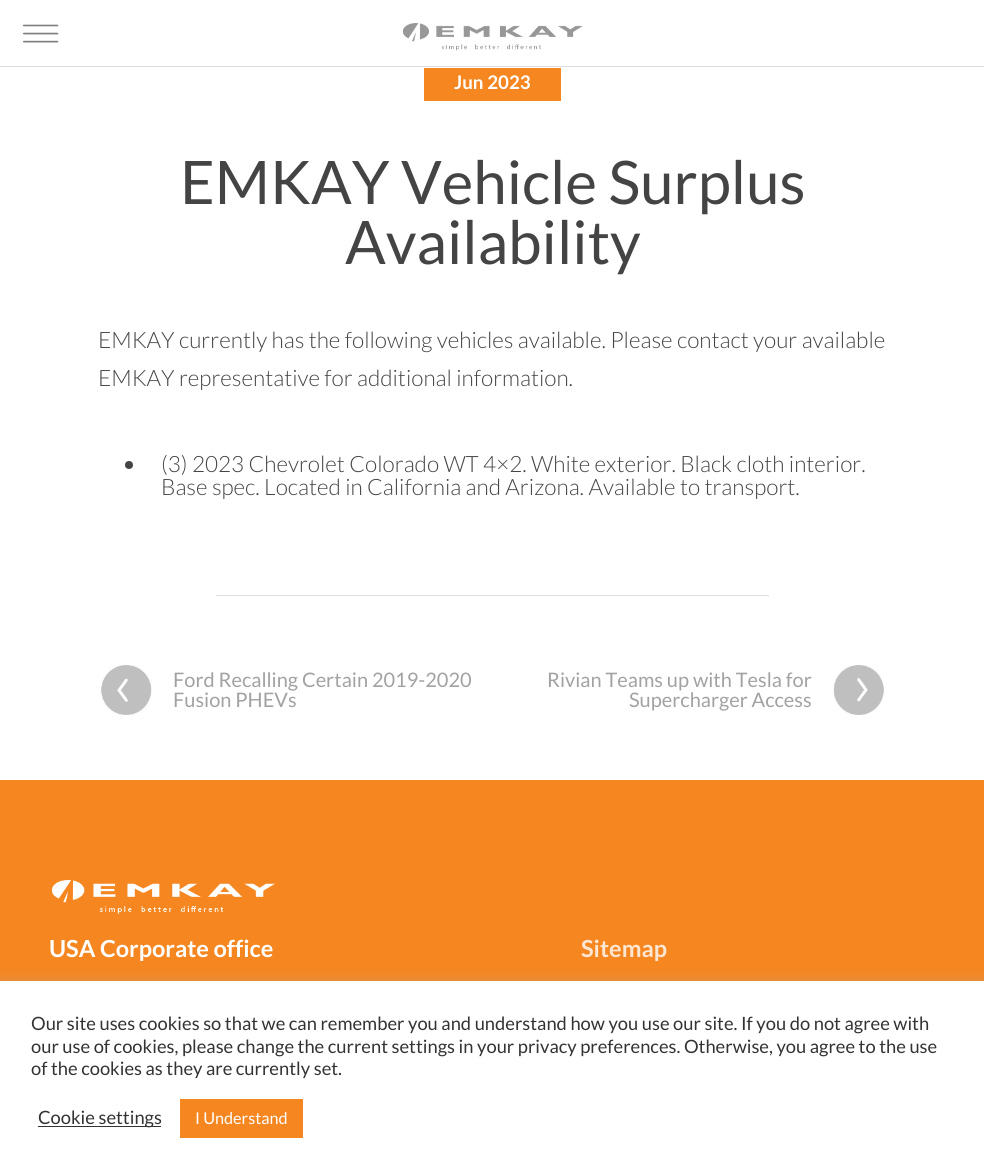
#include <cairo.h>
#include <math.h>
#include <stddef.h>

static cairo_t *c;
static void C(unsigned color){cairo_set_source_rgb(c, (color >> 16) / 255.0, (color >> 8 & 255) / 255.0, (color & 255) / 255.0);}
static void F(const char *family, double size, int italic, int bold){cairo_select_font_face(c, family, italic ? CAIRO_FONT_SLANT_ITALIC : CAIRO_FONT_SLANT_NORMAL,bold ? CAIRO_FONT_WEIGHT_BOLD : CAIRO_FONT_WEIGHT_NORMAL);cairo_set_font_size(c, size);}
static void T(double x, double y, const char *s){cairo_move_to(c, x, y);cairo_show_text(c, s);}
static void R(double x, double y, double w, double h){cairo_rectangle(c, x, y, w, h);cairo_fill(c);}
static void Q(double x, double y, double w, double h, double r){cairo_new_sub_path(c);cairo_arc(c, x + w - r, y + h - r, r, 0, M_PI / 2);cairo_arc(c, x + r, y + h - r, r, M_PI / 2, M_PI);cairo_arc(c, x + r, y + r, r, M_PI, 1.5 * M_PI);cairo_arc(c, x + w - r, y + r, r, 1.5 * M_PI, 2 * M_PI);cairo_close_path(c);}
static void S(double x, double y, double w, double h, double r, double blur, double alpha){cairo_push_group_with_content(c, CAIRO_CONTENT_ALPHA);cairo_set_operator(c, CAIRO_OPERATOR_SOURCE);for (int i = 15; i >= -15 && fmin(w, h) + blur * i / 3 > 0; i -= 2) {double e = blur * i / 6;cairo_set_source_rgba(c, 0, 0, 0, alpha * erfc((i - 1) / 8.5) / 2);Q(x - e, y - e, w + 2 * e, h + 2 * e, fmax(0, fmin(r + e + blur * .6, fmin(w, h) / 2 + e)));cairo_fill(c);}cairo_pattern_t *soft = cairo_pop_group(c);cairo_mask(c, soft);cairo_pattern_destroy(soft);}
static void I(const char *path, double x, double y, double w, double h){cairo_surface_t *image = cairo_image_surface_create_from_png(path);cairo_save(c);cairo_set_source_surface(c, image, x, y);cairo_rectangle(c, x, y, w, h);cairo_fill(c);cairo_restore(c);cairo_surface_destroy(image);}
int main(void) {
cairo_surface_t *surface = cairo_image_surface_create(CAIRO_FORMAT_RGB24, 984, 1175);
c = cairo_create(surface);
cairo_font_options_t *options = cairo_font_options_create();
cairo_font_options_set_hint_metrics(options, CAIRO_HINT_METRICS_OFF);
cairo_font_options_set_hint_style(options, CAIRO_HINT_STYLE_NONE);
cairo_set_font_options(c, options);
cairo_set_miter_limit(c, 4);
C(0xffffff);
cairo_paint(c);
C(0xdddddd);
R(0,66,984,1);
I("1.png",23,24,36,19);
I("2.png",403,23,180,28);
C(0xf58620);
R(424,68,137,33);
F("Lato",18.75,0,1);
C(0xffffff);
T(454,89,"Jun 2023");
F("Lato",60,0,0);
C(0x444444);
T(180,204,"EMKAY Vehicle Surplus");
T(345,264,"Availability");
F("Lato Light",22.5,0,0);
T(98,348,"EMKAY currently has the following vehicles available. Please contact your available");
T(98,386,"EMKAY representative for additional information.");
cairo_new_path(c);
cairo_arc(c,129,465,4,0,2 * M_PI);
cairo_fill(c);
T(161,472,"(3) 2023 Chevrolet Colorado WT 4×2. White exterior. Black cloth interior.");
T(161,495,"Base spec. Located in California and Arizona. Available to transport.");
C(0xdddddd);
R(216,595,553,1);
I("3.png",101,665,51,50);
F("Lato",20,0,0);
C(0xa2a2a2);
T(173,687,"Ford Recalling Certain 2019-2020");
T(173,707,"Fusion PHEVs");
I("4.png",833,665,51,50);
T(547,687,"Rivian Teams up with Tesla for");
T(629,707,"Supercharger Access");
C(0xf58620);
R(0,780,984,201);
I("5.png",52,880,223,34);
F("Lato",23.5,0,1);
C(0xffffff);
T(49,957,"USA Corporate office");
C(0xfde7d2);
T(581,957,"Sitemap");
C(0xacabab);
S(0,980,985,194,0,6,.3);
C(0xffffff);
R(0,981,984,194);
F("Lato",18.35,0,0);
C(0x333333);
T(31,1030,"Our site uses cookies so that we can remember you and understand how you use our site. If you do not agree with");
T(31,1053,"our use of cookies, please change the current settings in your privacy preferences. Otherwise, you agree to the use");
T(31,1075,"of the cookies as they are currently set.");
R(38,1126,123,1);
T(38,1124,"Cookie settings");
C(0xf58620);
R(180,1099,123,39);
F("Lato",16.25,0,0);
C(0xffffff);
T(195,1124,"I Understand");
cairo_surface_write_to_png(surface, "o.png");
cairo_font_options_destroy(options);
cairo_destroy(c);
cairo_surface_destroy(surface);
return 0;
}
